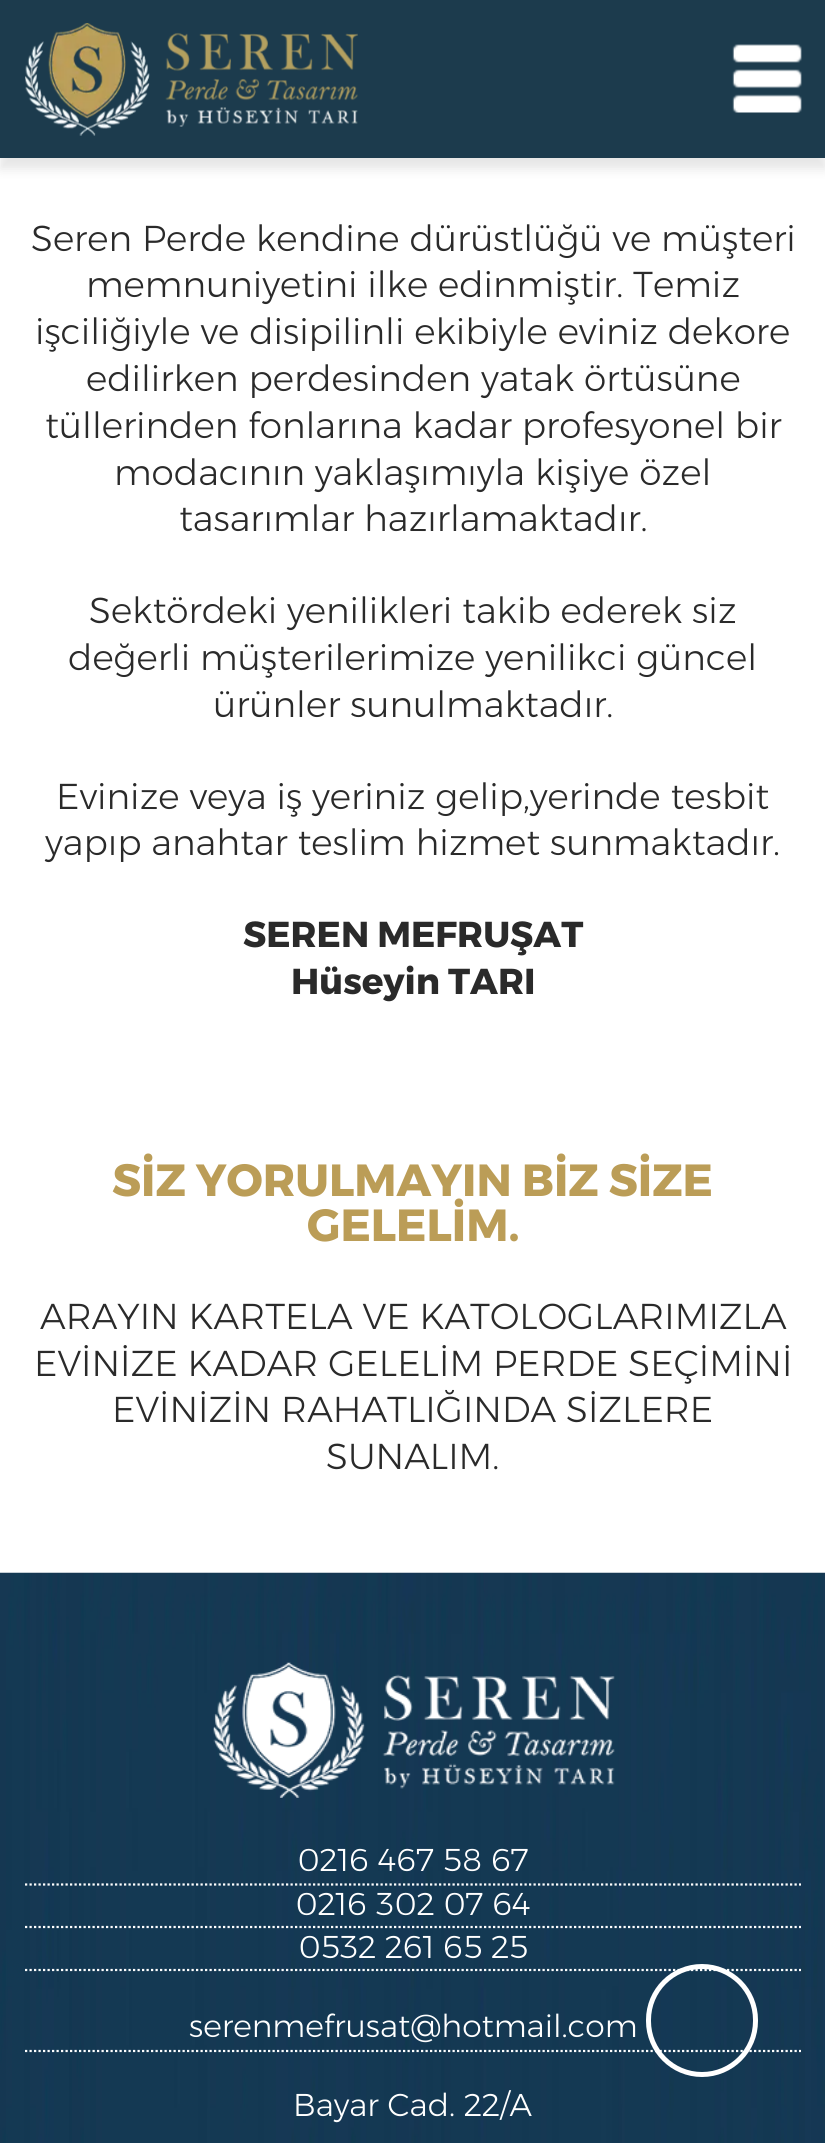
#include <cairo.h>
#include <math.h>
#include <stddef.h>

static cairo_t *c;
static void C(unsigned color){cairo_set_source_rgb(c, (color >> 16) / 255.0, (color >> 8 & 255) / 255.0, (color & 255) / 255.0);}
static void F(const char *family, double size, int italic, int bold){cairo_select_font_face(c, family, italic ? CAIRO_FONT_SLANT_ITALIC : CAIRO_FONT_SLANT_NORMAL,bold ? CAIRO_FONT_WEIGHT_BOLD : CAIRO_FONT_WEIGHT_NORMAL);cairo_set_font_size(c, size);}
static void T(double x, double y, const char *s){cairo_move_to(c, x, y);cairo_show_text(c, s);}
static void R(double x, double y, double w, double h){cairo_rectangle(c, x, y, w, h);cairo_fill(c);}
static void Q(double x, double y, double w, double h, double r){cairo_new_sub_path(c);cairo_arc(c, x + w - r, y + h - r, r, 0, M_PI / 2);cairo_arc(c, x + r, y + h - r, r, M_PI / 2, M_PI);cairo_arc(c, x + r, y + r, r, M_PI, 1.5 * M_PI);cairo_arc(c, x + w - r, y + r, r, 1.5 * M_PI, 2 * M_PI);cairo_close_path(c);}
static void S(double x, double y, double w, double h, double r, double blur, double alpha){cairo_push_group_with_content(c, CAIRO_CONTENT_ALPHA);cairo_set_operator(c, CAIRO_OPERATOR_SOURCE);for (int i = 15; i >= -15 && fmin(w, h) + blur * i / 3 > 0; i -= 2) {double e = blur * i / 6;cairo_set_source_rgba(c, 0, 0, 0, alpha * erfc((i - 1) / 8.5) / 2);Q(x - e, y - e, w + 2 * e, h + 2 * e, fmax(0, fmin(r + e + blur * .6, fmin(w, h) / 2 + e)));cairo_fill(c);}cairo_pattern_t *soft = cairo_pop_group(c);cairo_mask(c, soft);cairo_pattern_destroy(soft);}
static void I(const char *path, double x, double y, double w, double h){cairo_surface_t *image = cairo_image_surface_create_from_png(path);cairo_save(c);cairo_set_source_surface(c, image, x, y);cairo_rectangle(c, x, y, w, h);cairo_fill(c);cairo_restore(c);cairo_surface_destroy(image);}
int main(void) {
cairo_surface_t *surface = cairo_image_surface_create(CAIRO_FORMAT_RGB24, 825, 2143);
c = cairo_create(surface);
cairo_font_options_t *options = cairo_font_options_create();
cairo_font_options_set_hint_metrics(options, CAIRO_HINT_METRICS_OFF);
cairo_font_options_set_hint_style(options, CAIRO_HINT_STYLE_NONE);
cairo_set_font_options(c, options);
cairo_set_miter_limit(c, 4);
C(0xffffff);
cairo_paint(c);
cairo_save(c);
cairo_set_fill_rule(c,CAIRO_FILL_RULE_EVEN_ODD);
cairo_new_path(c);
cairo_move_to(c,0,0);
cairo_line_to(c,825,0);
cairo_line_to(c,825,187);
cairo_line_to(c,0,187);
cairo_close_path(c);
cairo_move_to(c,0,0);
cairo_line_to(c,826,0);
cairo_line_to(c,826,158);
cairo_line_to(c,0,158);
cairo_close_path(c);
cairo_clip(c);
C(0x000000);
S(0,11,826,158,0,5.5,.1);
cairo_restore(c);
cairo_set_source_rgba(c,0.067,0.196,0.271,0.95);
R(0,0,825,158);
I("1.png",25,23,333,113);
I("2.png",732,44,70,69);
F("Montserrat Light",36,0,0);
C(0x2a2a2a);
T(31,251,"Seren Perde kendine dürüstlüğü ve müşteri");
T(86,297,"memnuniyetini ilke edinmiştir. Temiz");
T(35,344,"işciliğiyle ve disipilinli ekibiyle eviniz dekore");
T(86,391,"edilirken perdesinden yatak örtüsüne");
T(45,438,"tüllerinden fonlarına kadar profesyonel bir");
T(114,485,"modacının yaklaşımıyla kişiye özel");
T(179,531,"tasarımlar hazırlamaktadır.");
T(89,623,"Sektördeki yenilikleri takib ederek siz");
T(68,670,"değerli müşterilerimize yenilikci güncel");
T(213,717,"ürünler sunulmaktadır.");
T(56,809,"Evinize veya iş yeriniz gelip,yerinde tesbit");
T(45,855,"yapıp anahtar teslim hizmet sunmaktadır.");
F("Montserrat",36,0,1);
T(243,947,"SEREN MEFRUŞAT");
T(291,994,"Hüseyin TARI");
F("Montserrat",45,0,1);
C(0xbb9d57);
T(112,1196,"SİZ YORULMAYIN BİZ SİZE");
T(307,1241,"GELELİM.");
F("Montserrat Light",36,0,0);
C(0x2a2a2a);
T(40,1329,"ARAYIN KARTELA VE KATOLOGLARIMIZLA");
T(34,1376,"EVİNİZE KADAR GELELİM PERDE SEÇİMİNİ");
T(112,1422,"EVİNİZİN RAHATLIĞINDA SİZLERE");
T(326,1469,"SUNALIM.");
I("3.png",0,1572,825,571);
I("4.png",213,1662,402,136);
cairo_new_path(c);
cairo_move_to(c,25,1884.5);
cairo_line_to(c,801,1884.5);
C(0xffffff);
cairo_set_line_width(c,2.2);
cairo_set_dash(c,(double[]){2.25,2.25},2,0);
cairo_stroke(c);
F("Montserrat Light",31.5,0,0);
T(297,1871,"0216 467 58 67");
cairo_new_path(c);
cairo_move_to(c,25,1927);
cairo_line_to(c,801,1927);
cairo_stroke(c);
T(295,1915,"0216 302 07 64");
cairo_new_path(c);
cairo_move_to(c,25,1970);
cairo_line_to(c,801,1970);
cairo_stroke(c);
T(298,1958,"0532 261 65 25");
cairo_new_path(c);
cairo_move_to(c,25,2051);
cairo_line_to(c,801,2051);
cairo_stroke(c);
T(189,2037,"serenmefrusat@hotmail.com");
T(293,2116,"Bayar Cad. 22/A");
Q(648.5,1966.5,107,108,53.5);
cairo_set_line_width(c,5);
cairo_set_dash(c,NULL,0,0);
cairo_stroke(c);
cairo_surface_write_to_png(surface, "o.png");
cairo_font_options_destroy(options);
cairo_destroy(c);
cairo_surface_destroy(surface);
return 0;
}
